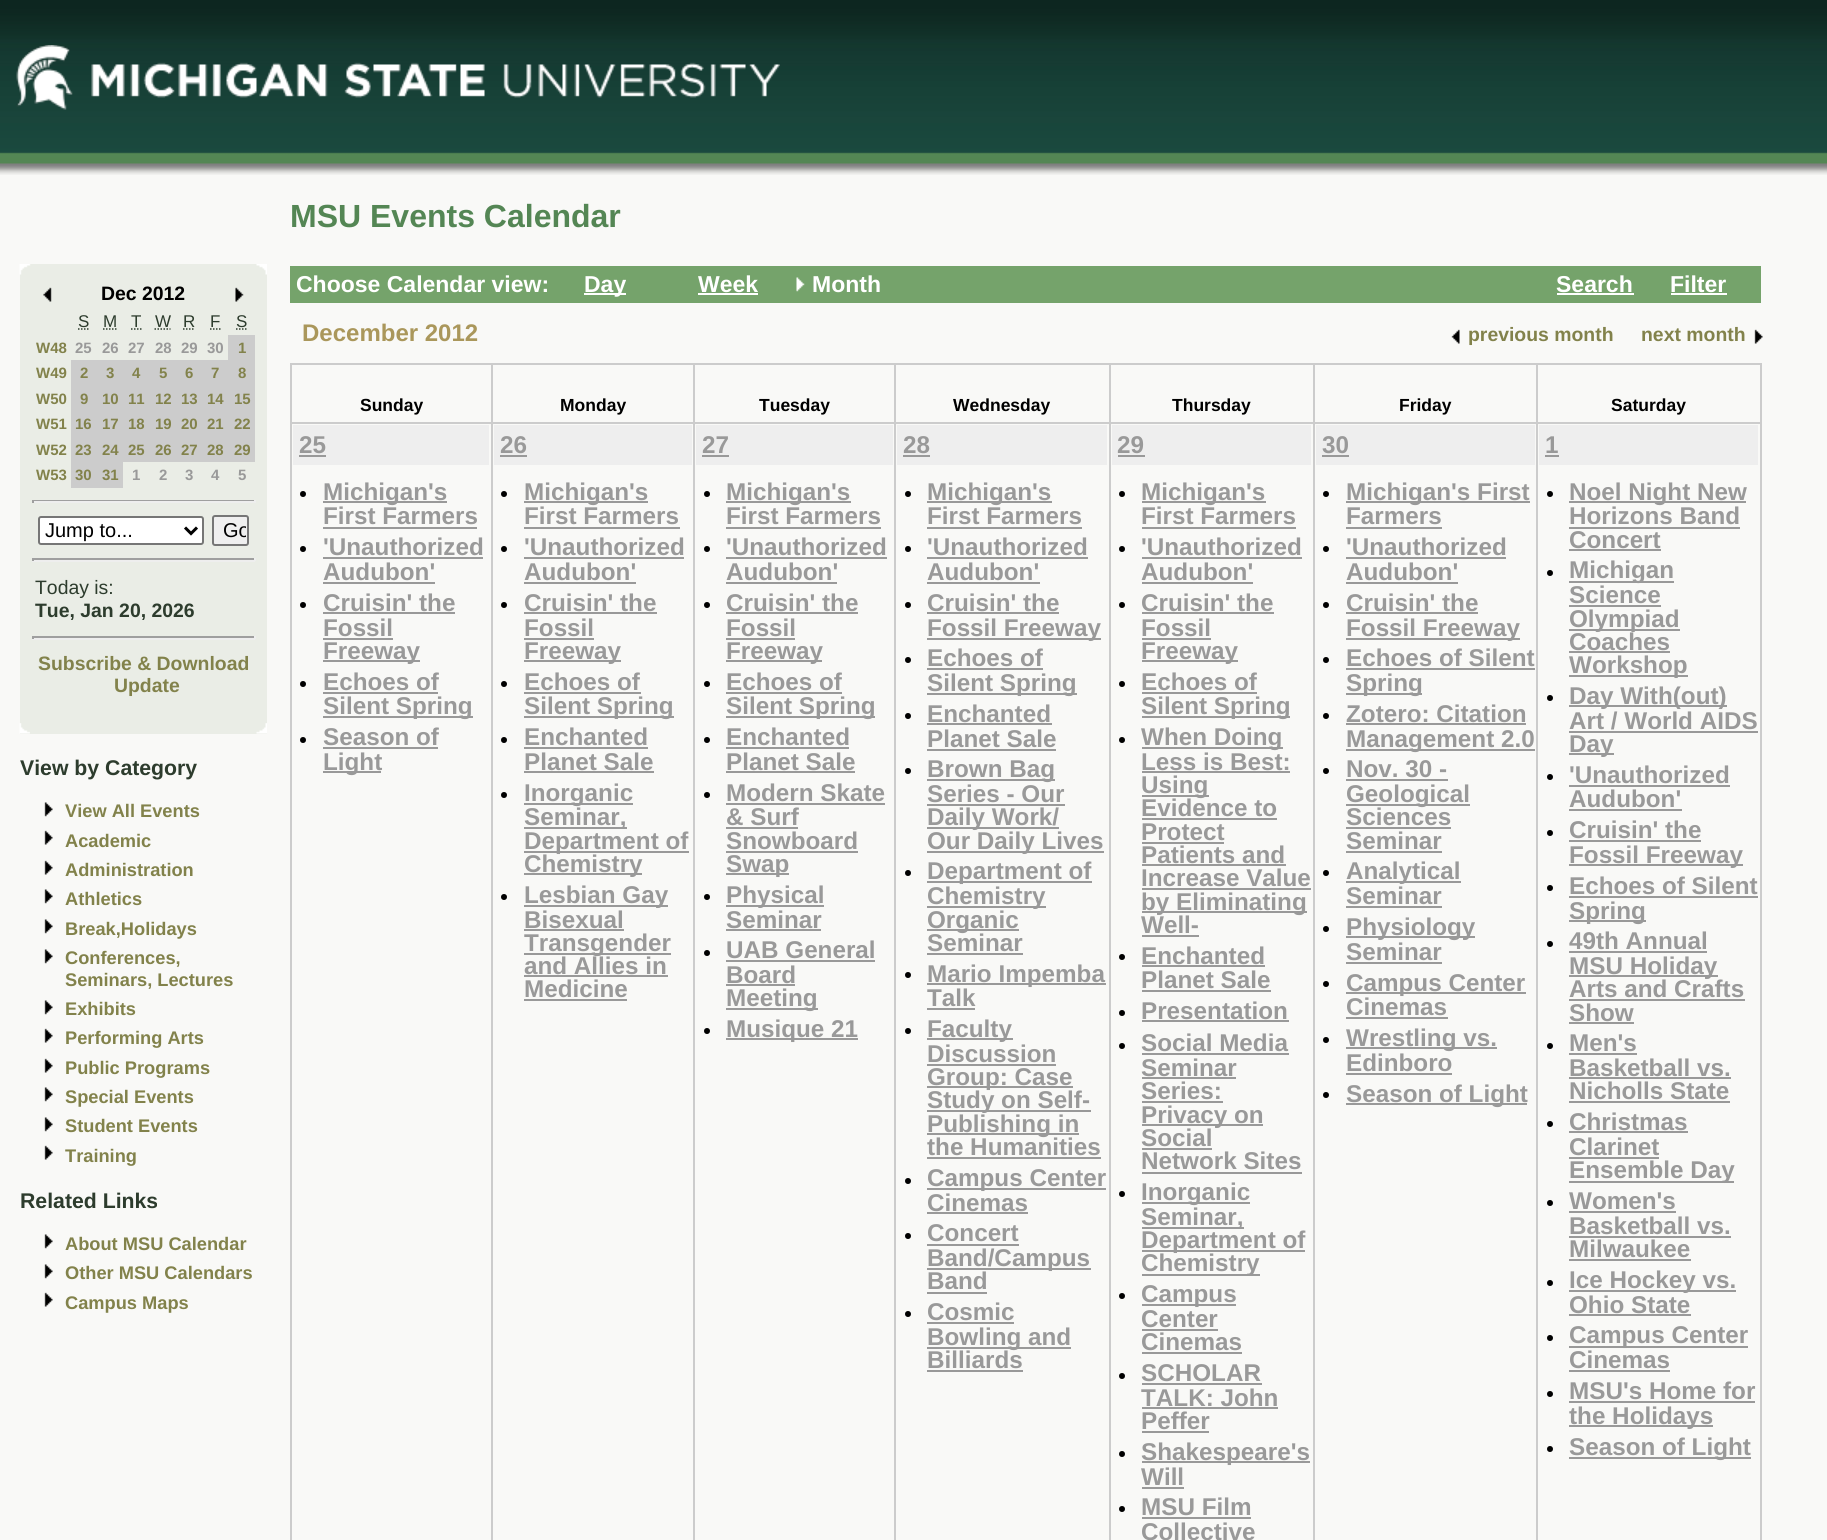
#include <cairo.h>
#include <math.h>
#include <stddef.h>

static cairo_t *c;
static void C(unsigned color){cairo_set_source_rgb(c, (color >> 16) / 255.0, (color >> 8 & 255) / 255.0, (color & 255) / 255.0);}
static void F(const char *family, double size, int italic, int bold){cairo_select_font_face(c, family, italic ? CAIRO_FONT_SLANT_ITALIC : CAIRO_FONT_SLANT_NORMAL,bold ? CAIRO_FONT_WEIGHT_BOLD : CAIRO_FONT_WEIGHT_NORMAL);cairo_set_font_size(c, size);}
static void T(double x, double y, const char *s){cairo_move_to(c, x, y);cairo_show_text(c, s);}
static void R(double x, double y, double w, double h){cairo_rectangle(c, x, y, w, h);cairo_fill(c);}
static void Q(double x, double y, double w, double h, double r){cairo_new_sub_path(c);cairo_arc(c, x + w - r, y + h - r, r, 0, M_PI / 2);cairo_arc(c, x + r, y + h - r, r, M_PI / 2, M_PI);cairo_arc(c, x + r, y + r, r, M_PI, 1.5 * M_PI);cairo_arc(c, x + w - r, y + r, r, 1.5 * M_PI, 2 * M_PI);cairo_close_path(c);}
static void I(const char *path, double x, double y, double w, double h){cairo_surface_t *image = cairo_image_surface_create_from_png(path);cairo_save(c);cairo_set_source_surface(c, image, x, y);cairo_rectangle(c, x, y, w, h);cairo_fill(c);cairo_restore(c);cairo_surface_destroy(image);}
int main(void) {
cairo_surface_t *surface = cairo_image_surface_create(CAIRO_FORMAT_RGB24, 1827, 1540);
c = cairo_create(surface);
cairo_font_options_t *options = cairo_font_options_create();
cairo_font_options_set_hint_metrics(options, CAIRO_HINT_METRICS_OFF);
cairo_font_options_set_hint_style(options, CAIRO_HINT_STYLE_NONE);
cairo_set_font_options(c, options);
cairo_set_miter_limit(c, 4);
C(0xf9f9f7);
cairo_paint(c);
I("1.png",0,0,1827,175);
I("2.png",16,45,764,65);
C(0xeaede6);
R(20,264,12,470);
I("3.png",19,264,12,11);
R(32,264,223,470);
R(255,264,12,470);
I("4.png",256,264,11,11);
I("5.png",43,287,9,15);
F("Liberation Sans",19.4,0,1);
C(0x000000);
T(101,300,"Dec 2012");
I("6.png",235,287,9,15);
F("Liberation Sans",17,0,0);
C(0x2d3c2d);
T(78,327,"S");
cairo_new_path(c);
cairo_move_to(c,78,329);
cairo_line_to(c,89,329);
cairo_set_line_width(c,1.5);
cairo_set_dash(c,(double[]){1.5,1.5},2,0);
cairo_stroke(c);
T(103,327,"M");
cairo_new_path(c);
cairo_move_to(c,103,329);
cairo_line_to(c,117,329);
cairo_stroke(c);
T(131,327,"T");
cairo_new_path(c);
cairo_move_to(c,131,329);
cairo_line_to(c,132.5,329);
cairo_move_to(c,134,329);
cairo_line_to(c,135.5,329);
cairo_move_to(c,137,329);
cairo_line_to(c,138.5,329);
cairo_move_to(c,140,329);
cairo_line_to(c,141.5,329);
cairo_set_dash(c,NULL,0,0);
cairo_stroke(c);
T(155,327,"W");
cairo_new_path(c);
cairo_move_to(c,154.5,329);
cairo_line_to(c,170.5,329);
cairo_set_dash(c,(double[]){1.5,1.5},2,0);
cairo_stroke(c);
T(183,327,"R");
cairo_new_path(c);
cairo_move_to(c,183,329);
cairo_line_to(c,195,329);
cairo_stroke(c);
T(210,327,"F");
cairo_new_path(c);
cairo_move_to(c,210,329);
cairo_line_to(c,211.5,329);
cairo_move_to(c,213,329);
cairo_line_to(c,214.5,329);
cairo_move_to(c,216,329);
cairo_line_to(c,217.5,329);
cairo_move_to(c,219,329);
cairo_line_to(c,220.5,329);
cairo_set_dash(c,NULL,0,0);
cairo_stroke(c);
T(236,327,"S");
cairo_new_path(c);
cairo_move_to(c,236,329);
cairo_line_to(c,247.5,329);
cairo_set_dash(c,(double[]){1.5,1.5},2,0);
cairo_stroke(c);
F("Liberation Sans",15,0,1);
C(0x82824b);
T(36,353,"W48");
C(0x999999);
T(75,353,"25");
T(102,353,"26");
T(128,353,"27");
T(155,353,"28");
T(181,353,"29");
T(207,353,"30");
C(0xcccccc);
R(228,335,27,25);
C(0x82824b);
T(238,353,"1");
T(36,378,"W49");
C(0xcccccc);
R(71,360,184,26);
C(0x82824b);
T(80,378,"2");
T(106,378,"3");
T(132,378,"4");
T(159,378,"5");
T(185,378,"6");
T(211,378,"7");
T(238,378,"8");
T(36,404,"W50");
C(0xcccccc);
R(71,386,184,25);
C(0x82824b);
T(80,404,"9");
T(102,404,"10");
T(128,404,"11");
T(155,404,"12");
T(181,404,"13");
T(207,404,"14");
T(234,404,"15");
T(36,429,"W51");
C(0xcccccc);
R(71,411,184,26);
C(0x82824b);
T(75,429,"16");
T(102,429,"17");
T(128,429,"18");
T(155,429,"19");
T(181,429,"20");
T(207,429,"21");
T(234,429,"22");
T(36,455,"W52");
C(0xcccccc);
R(71,437,184,25);
C(0x82824b);
T(75,455,"23");
T(102,455,"24");
T(128,455,"25");
T(155,455,"26");
T(181,455,"27");
T(207,455,"28");
T(234,455,"29");
T(36,480,"W53");
C(0xcccccc);
R(71,462,52,26);
C(0x82824b);
T(75,480,"30");
T(102,480,"31");
C(0x999999);
T(132,480,"1");
T(159,480,"2");
T(185,480,"3");
T(211,480,"4");
T(238,480,"5");
C(0x9f9f9f);
R(32,500,223,1);
C(0xeeeeee);
R(254,500,2,3);
R(32,501,223,2);
C(0x9f9f9f);
R(32,500,2,3);
C(0xffffff);
Q(39,517,164,27,2);
cairo_fill_preserve(c);
C(0x767676);
cairo_set_line_width(c,2);
cairo_set_dash(c,NULL,0,0);
cairo_stroke(c);
cairo_new_path(c);
cairo_move_to(c,185,527.5);
cairo_line_to(c,191,533.5);
cairo_line_to(c,197,527.5);
C(0x000000);
cairo_set_line_width(c,3);
cairo_stroke(c);
F("Liberation Sans",20,0,0);
T(45,537,"Jump to...");
C(0xefefef);
Q(213,516,35,29,2);
cairo_fill_preserve(c);
C(0x767676);
cairo_set_line_width(c,2);
cairo_stroke(c);
cairo_save(c);
cairo_rectangle(c,215,518,31,25);
cairo_clip(c);
C(0x000000);
T(223,537,"Go");
cairo_restore(c);
C(0x9f9f9f);
R(32,558,223,2);
C(0xeeeeee);
R(254,558,2,3);
R(32,560,223,2);
C(0x9f9f9f);
R(32,558,2,3);
F("Liberation Sans",19.4,0,0);
C(0x2d3c2d);
T(35,594,"Today is:");
F("Liberation Sans",19.4,0,1);
T(35,617,"Tue, Jan 20, 2026");
C(0x9f9f9f);
R(32,636,223,2);
C(0xeeeeee);
R(254,636,2,3);
R(32,638,223,2);
C(0x9f9f9f);
R(32,636,2,3);
C(0x82824b);
T(38,670,"Subscribe & Download");
T(114,692,"Update");
I("7.png",19,723,11,11);
I("8.png",256,723,11,11);
F("Liberation Sans",21.25,0,1);
C(0x2d3c2d);
T(20,775,"View by Category");
I("9.png",44,802,9,15);
F("Liberation Sans",18.25,0,1);
C(0x82824b);
T(65,817,"View All Events");
I("10.png",44,830,9,15);
T(65,847,"Academic");
I("10.png",44,860,9,15);
T(65,876,"Administration");
I("9.png",44,889,9,15);
T(65,905,"Athletics");
I("9.png",44,919,9,15);
T(65,935,"Break,Holidays");
I("9.png",44,949,9,15);
T(65,964,"Conferences,");
T(65,986,"Seminars, Lectures");
I("9.png",44,1000,9,15);
T(65,1015,"Exhibits");
I("10.png",44,1028,9,15);
T(65,1044,"Performing Arts");
I("10.png",44,1058,9,15);
T(65,1074,"Public Programs");
I("9.png",44,1087,9,15);
T(65,1103,"Special Events");
I("9.png",44,1117,9,15);
T(65,1132,"Student Events");
I("10.png",44,1145,9,15);
T(65,1162,"Training");
F("Liberation Sans",21.25,0,1);
C(0x2d3c2d);
T(20,1208,"Related Links");
I("9.png",44,1234,9,15);
F("Liberation Sans",18.25,0,1);
C(0x82824b);
T(65,1250,"About MSU Calendar");
I("9.png",44,1264,9,15);
T(65,1279,"Other MSU Calendars");
I("10.png",44,1292,9,15);
T(65,1309,"Campus Maps");
F("Liberation Sans",32,0,1);
C(0x548654);
T(290,227,"MSU Events Calendar");
C(0x75a36b);
R(290,266,1471,37);
F("Liberation Sans",23,0,1);
C(0xffffff);
T(296,292,"Choose Calendar view:");
R(584,293,42,2);
T(584,292,"Day");
T(698,292,"Week");
R(698,293,60,2);
I("11.png",796,277,9,15);
T(812,292,"Month");
T(1556,292,"Search");
R(1557,293,77,2);
T(1670,292,"Filter");
R(1671,293,56,2);
F("Liberation Sans",24,0,1);
C(0xaa975b);
T(302,341,"December 2012");
I("12.png",1451,329,9,15);
F("Liberation Sans",19.4,0,1);
C(0x82824b);
T(1468,341,"previous month");
T(1641,341,"next month");
I("10.png",1754,329,9,15);
C(0xcccccc);
R(290,363,1471,2);
R(1760,363,2,1177);
R(290,363,2,1177);
F("Liberation Sans",17.5,0,1);
C(0x000000);
T(360,411,"Sunday");
C(0xcccccc);
R(1536,422,225,2);
R(1536,422,2,1118);
R(1313,422,225,2);
R(1313,422,2,1118);
R(1109,422,205,2);
R(1109,422,2,1118);
R(894,422,216,2);
R(894,422,2,1118);
R(693,422,203,2);
R(693,422,2,1118);
R(491,422,204,2);
R(491,422,2,1118);
R(290,422,202,2);
R(491,363,2,60);
C(0x000000);
T(560,411,"Monday");
C(0xcccccc);
R(693,363,2,60);
C(0x000000);
T(759,411,"Tuesday");
C(0xcccccc);
R(894,363,2,60);
C(0x000000);
T(953,411,"Wednesday");
C(0xcccccc);
R(1109,363,2,60);
C(0x000000);
T(1172,411,"Thursday");
C(0xcccccc);
R(1313,363,2,60);
C(0x000000);
T(1399,411,"Friday");
C(0xcccccc);
R(1536,363,2,60);
C(0x000000);
T(1611,411,"Saturday");
C(0xeeeeee);
R(293,425,196,40);
F("Liberation Sans",24.25,0,1);
C(0x999999);
T(299,453,"25");
R(299,455,27,2);
C(0x000000);
cairo_new_path(c);
cairo_arc(c,303,494,3,0,2 * M_PI);
cairo_fill(c);
C(0x999999);
R(323,501,124,2);
T(323,500,"Michigan's");
T(323,524,"First Farmers");
R(323,527,154,2);
C(0x000000);
cairo_new_path(c);
cairo_arc(c,303,549,3,0,2 * M_PI);
cairo_fill(c);
C(0x999999);
T(323,555,"'Unauthorized");
R(323,557,160,2);
T(323,580,"Audubon'");
R(323,582,112,2);
C(0x000000);
cairo_new_path(c);
cairo_arc(c,303,605,3,0,2 * M_PI);
cairo_fill(c);
C(0x999999);
T(323,611,"Cruisin' the");
R(323,612,132,2);
T(323,636,"Fossil");
R(323,638,70,2);
R(323,660,97,2);
T(323,659,"Freeway");
C(0x000000);
cairo_new_path(c);
cairo_arc(c,303,684,3,0,2 * M_PI);
cairo_fill(c);
C(0x999999);
T(323,690,"Echoes of");
R(323,692,115,2);
R(323,716,150,2);
T(323,714,"Silent Spring");
C(0x000000);
cairo_new_path(c);
cairo_arc(c,303,740,3,0,2 * M_PI);
cairo_fill(c);
C(0x999999);
T(323,745,"Season of");
R(323,747,115,2);
R(323,771,58,2);
T(323,770,"Light");
C(0xeeeeee);
R(494,425,198,40);
C(0x999999);
T(500,453,"26");
R(500,455,27,2);
C(0x000000);
cairo_new_path(c);
cairo_arc(c,504,494,3,0,2 * M_PI);
cairo_fill(c);
C(0x999999);
R(524,501,124,2);
T(524,500,"Michigan's");
T(524,524,"First Farmers");
R(524,527,156,2);
C(0x000000);
cairo_new_path(c);
cairo_arc(c,504,549,3,0,2 * M_PI);
cairo_fill(c);
C(0x999999);
T(524,555,"'Unauthorized");
R(524,557,160,2);
T(524,580,"Audubon'");
R(524,582,112,2);
C(0x000000);
cairo_new_path(c);
cairo_arc(c,504,605,3,0,2 * M_PI);
cairo_fill(c);
C(0x999999);
T(524,611,"Cruisin' the");
R(524,612,133,2);
T(524,636,"Fossil");
R(524,638,70,2);
R(524,660,97,2);
T(524,659,"Freeway");
C(0x000000);
cairo_new_path(c);
cairo_arc(c,504,684,3,0,2 * M_PI);
cairo_fill(c);
C(0x999999);
T(524,690,"Echoes of");
R(524,692,117,2);
R(524,716,150,2);
T(524,714,"Silent Spring");
C(0x000000);
cairo_new_path(c);
cairo_arc(c,504,740,3,0,2 * M_PI);
cairo_fill(c);
C(0x999999);
T(524,745,"Enchanted");
R(524,747,124,2);
T(524,770,"Planet Sale");
R(524,771,130,2);
C(0x000000);
cairo_new_path(c);
cairo_arc(c,504,795,3,0,2 * M_PI);
cairo_fill(c);
C(0x999999);
R(524,803,109,2);
T(524,801,"Inorganic");
R(524,827,103,2);
T(524,825,"Seminar,");
R(524,851,165,2);
T(524,849,"Department of");
R(524,873,118,2);
T(524,872,"Chemistry");
C(0x000000);
cairo_new_path(c);
cairo_arc(c,504,897,3,0,2 * M_PI);
cairo_fill(c);
C(0x999999);
R(524,905,144,2);
T(524,903,"Lesbian Gay");
T(524,928,"Bisexual");
R(524,929,100,2);
R(524,953,147,2);
T(524,951,"Transgender");
T(524,974,"and Allies in");
R(524,975,144,2);
T(524,997,"Medicine");
R(524,999,103,2);
C(0xeeeeee);
R(696,425,197,40);
C(0x999999);
T(702,453,"27");
R(702,455,27,2);
C(0x000000);
cairo_new_path(c);
cairo_arc(c,707,494,3,0,2 * M_PI);
cairo_fill(c);
C(0x999999);
R(726,501,125,2);
T(726,500,"Michigan's");
T(726,524,"First Farmers");
R(726,527,155,2);
C(0x000000);
cairo_new_path(c);
cairo_arc(c,707,549,3,0,2 * M_PI);
cairo_fill(c);
C(0x999999);
T(726,555,"'Unauthorized");
R(726,557,161,2);
T(726,580,"Audubon'");
R(726,582,111,2);
C(0x000000);
cairo_new_path(c);
cairo_arc(c,707,605,3,0,2 * M_PI);
cairo_fill(c);
C(0x999999);
T(726,611,"Cruisin' the");
R(726,612,132,2);
T(726,636,"Fossil");
R(726,638,69,2);
R(726,660,96,2);
T(726,659,"Freeway");
C(0x000000);
cairo_new_path(c);
cairo_arc(c,707,684,3,0,2 * M_PI);
cairo_fill(c);
C(0x999999);
T(726,690,"Echoes of");
R(726,692,116,2);
R(726,716,149,2);
T(726,714,"Silent Spring");
C(0x000000);
cairo_new_path(c);
cairo_arc(c,707,740,3,0,2 * M_PI);
cairo_fill(c);
C(0x999999);
T(726,745,"Enchanted");
R(726,747,123,2);
T(726,770,"Planet Sale");
R(726,771,129,2);
C(0x000000);
cairo_new_path(c);
cairo_arc(c,707,795,3,0,2 * M_PI);
cairo_fill(c);
C(0x999999);
T(726,801,"Modern Skate");
R(726,803,159,2);
T(726,825,"& Surf");
R(726,827,72,2);
T(726,849,"Snowboard");
R(726,851,132,2);
R(726,873,63,2);
T(726,872,"Swap");
C(0x000000);
cairo_new_path(c);
cairo_arc(c,707,897,3,0,2 * M_PI);
cairo_fill(c);
C(0x999999);
R(726,905,98,2);
T(726,903,"Physical");
T(726,928,"Seminar");
R(726,929,95,2);
C(0x000000);
cairo_new_path(c);
cairo_arc(c,707,953,3,0,2 * M_PI);
cairo_fill(c);
C(0x999999);
T(726,958,"UAB General");
R(726,960,149,2);
T(726,983,"Board");
R(726,984,69,2);
R(726,1008,92,2);
T(726,1006,"Meeting");
C(0x000000);
cairo_new_path(c);
cairo_arc(c,707,1031,3,0,2 * M_PI);
cairo_fill(c);
C(0x999999);
R(726,1038,132,2);
T(726,1037,"Musique 21");
C(0xeeeeee);
R(897,425,210,40);
C(0x999999);
T(903,453,"28");
R(903,455,27,2);
C(0x000000);
cairo_new_path(c);
cairo_arc(c,908,494,3,0,2 * M_PI);
cairo_fill(c);
C(0x999999);
R(927,501,125,2);
T(927,500,"Michigan's");
T(927,524,"First Farmers");
R(927,527,155,2);
C(0x000000);
cairo_new_path(c);
cairo_arc(c,908,549,3,0,2 * M_PI);
cairo_fill(c);
C(0x999999);
T(927,555,"'Unauthorized");
R(927,557,161,2);
T(927,580,"Audubon'");
R(927,582,113,2);
C(0x000000);
cairo_new_path(c);
cairo_arc(c,908,605,3,0,2 * M_PI);
cairo_fill(c);
C(0x999999);
T(927,611,"Cruisin' the");
R(927,612,132,2);
R(927,638,174,2);
T(927,636,"Fossil Freeway");
C(0x000000);
cairo_new_path(c);
cairo_arc(c,908,660,3,0,2 * M_PI);
cairo_fill(c);
C(0x999999);
T(927,666,"Echoes of");
R(927,668,116,2);
R(927,693,150,2);
T(927,691,"Silent Spring");
C(0x000000);
cairo_new_path(c);
cairo_arc(c,908,716,3,0,2 * M_PI);
cairo_fill(c);
C(0x999999);
T(927,722,"Enchanted");
R(927,723,125,2);
T(927,747,"Planet Sale");
R(927,749,129,2);
C(0x000000);
cairo_new_path(c);
cairo_arc(c,908,771,3,0,2 * M_PI);
cairo_fill(c);
C(0x999999);
R(927,779,128,2);
T(927,777,"Brown Bag");
T(927,802,"Series - Our");
R(927,804,138,2);
R(927,827,132,2);
T(927,825,"Daily Work/");
R(927,851,177,2);
T(927,849,"Our Daily Lives");
C(0x000000);
cairo_new_path(c);
cairo_arc(c,908,873,3,0,2 * M_PI);
cairo_fill(c);
C(0x999999);
R(927,881,165,2);
T(927,879,"Department of");
R(927,906,119,2);
T(927,904,"Chemistry");
R(927,929,92,2);
T(927,928,"Organic");
T(927,951,"Seminar");
R(927,953,96,2);
C(0x000000);
cairo_new_path(c);
cairo_arc(c,908,975,3,0,2 * M_PI);
cairo_fill(c);
C(0x999999);
R(927,983,179,2);
T(927,982,"Mario Impemba");
T(927,1006,"Talk");
R(927,1008,48,2);
C(0x000000);
cairo_new_path(c);
cairo_arc(c,908,1031,3,0,2 * M_PI);
cairo_fill(c);
C(0x999999);
R(927,1038,86,2);
T(927,1037,"Faculty");
T(927,1062,"Discussion");
R(927,1064,129,2);
R(927,1086,146,2);
T(927,1085,"Group: Case");
R(927,1110,164,2);
T(927,1108,"Study on Self-");
R(927,1133,152,2);
T(927,1132,"Publishing in");
T(927,1155,"the Humanities");
R(927,1157,174,2);
C(0x000000);
cairo_new_path(c);
cairo_arc(c,908,1181,3,0,2 * M_PI);
cairo_fill(c);
C(0x999999);
R(927,1188,179,2);
T(927,1186,"Campus Center");
T(927,1211,"Cinemas");
R(927,1212,101,2);
C(0x000000);
cairo_new_path(c);
cairo_arc(c,908,1236,3,0,2 * M_PI);
cairo_fill(c);
C(0x999999);
T(927,1241,"Concert");
R(927,1244,92,2);
R(927,1268,164,2);
T(927,1266,"Band/Campus");
T(927,1289,"Band");
R(927,1292,60,2);
C(0x000000);
cairo_new_path(c);
cairo_arc(c,908,1314,3,0,2 * M_PI);
cairo_fill(c);
C(0x999999);
T(927,1320,"Cosmic");
R(927,1322,87,2);
R(927,1347,144,2);
T(927,1345,"Bowling and");
T(927,1368,"Billiards");
R(927,1370,96,2);
C(0xeeeeee);
R(1112,425,199,40);
C(0x999999);
T(1117,453,"29");
R(1118,455,27,2);
C(0x000000);
cairo_new_path(c);
cairo_arc(c,1122,494,3,0,2 * M_PI);
cairo_fill(c);
C(0x999999);
R(1142,501,124,2);
T(1141,500,"Michigan's");
T(1141,524,"First Farmers");
R(1142,527,154,2);
C(0x000000);
cairo_new_path(c);
cairo_arc(c,1122,549,3,0,2 * M_PI);
cairo_fill(c);
C(0x999999);
T(1141,555,"'Unauthorized");
R(1142,557,160,2);
T(1141,580,"Audubon'");
R(1142,582,111,2);
C(0x000000);
cairo_new_path(c);
cairo_arc(c,1122,605,3,0,2 * M_PI);
cairo_fill(c);
C(0x999999);
T(1141,611,"Cruisin' the");
R(1142,612,132,2);
T(1141,636,"Fossil");
R(1142,638,69,2);
R(1142,660,96,2);
T(1141,659,"Freeway");
C(0x000000);
cairo_new_path(c);
cairo_arc(c,1122,684,3,0,2 * M_PI);
cairo_fill(c);
C(0x999999);
T(1141,690,"Echoes of");
R(1142,692,115,2);
R(1142,716,148,2);
T(1141,714,"Silent Spring");
C(0x000000);
cairo_new_path(c);
cairo_arc(c,1122,740,3,0,2 * M_PI);
cairo_fill(c);
C(0x999999);
R(1142,747,141,2);
T(1141,745,"When Doing");
T(1141,770,"Less is Best:");
R(1142,771,148,2);
R(1142,795,67,2);
T(1141,793,"Using");
T(1141,816,"Evidence to");
R(1142,818,135,2);
T(1141,840,"Protect");
R(1142,842,82,2);
T(1141,863,"Patients and");
R(1142,864,144,2);
T(1141,886,"Increase Value");
R(1142,888,169,2);
R(1142,911,165,2);
T(1141,910,"by Eliminating");
T(1141,933,"Well-");
R(1142,935,57,2);
C(0x000000);
cairo_new_path(c);
cairo_arc(c,1122,957,3,0,2 * M_PI);
cairo_fill(c);
C(0x999999);
T(1141,964,"Enchanted");
R(1142,965,123,2);
T(1141,988,"Planet Sale");
R(1142,990,129,2);
C(0x000000);
cairo_new_path(c);
cairo_arc(c,1122,1013,3,0,2 * M_PI);
cairo_fill(c);
C(0x999999);
T(1141,1019,"Presentation");
R(1142,1020,147,2);
C(0x000000);
cairo_new_path(c);
cairo_arc(c,1122,1046,3,0,2 * M_PI);
cairo_fill(c);
C(0x999999);
T(1141,1051,"Social Media");
R(1142,1053,147,2);
T(1141,1076,"Seminar");
R(1142,1077,94,2);
T(1141,1099,"Series:");
R(1142,1101,81,2);
R(1142,1124,121,2);
T(1141,1123,"Privacy on");
T(1141,1146,"Social");
R(1142,1148,70,2);
T(1141,1169,"Network Sites");
R(1142,1172,160,2);
C(0x000000);
cairo_new_path(c);
cairo_arc(c,1122,1194,3,0,2 * M_PI);
cairo_fill(c);
C(0x999999);
R(1142,1202,108,2);
T(1141,1200,"Inorganic");
R(1142,1227,102,2);
T(1141,1225,"Seminar,");
R(1142,1250,163,2);
T(1141,1248,"Department of");
R(1142,1274,118,2);
T(1141,1271,"Chemistry");
C(0x000000);
cairo_new_path(c);
cairo_arc(c,1122,1296,3,0,2 * M_PI);
cairo_fill(c);
C(0x999999);
R(1142,1304,94,2);
T(1141,1302,"Campus");
T(1141,1327,"Center");
R(1142,1329,76,2);
T(1141,1350,"Cinemas");
R(1142,1352,100,2);
C(0x000000);
cairo_new_path(c);
cairo_arc(c,1122,1376,3,0,2 * M_PI);
cairo_fill(c);
C(0x999999);
T(1141,1381,"SCHOLAR");
R(1142,1383,120,2);
T(1141,1406,"TALK: John");
R(1142,1407,136,2);
T(1141,1429,"Peffer");
R(1142,1431,67,2);
C(0x000000);
cairo_new_path(c);
cairo_arc(c,1122,1454,3,0,2 * M_PI);
cairo_fill(c);
C(0x999999);
R(1142,1461,168,2);
T(1141,1460,"Shakespeare's");
T(1141,1485,"Will");
R(1142,1487,42,2);
C(0x000000);
cairo_new_path(c);
cairo_arc(c,1122,1509,3,0,2 * M_PI);
cairo_fill(c);
C(0x999999);
T(1141,1515,"MSU Film");
R(1142,1517,109,2);
T(1141,1540,"Collective");
C(0xeeeeee);
R(1316,425,219,40);
C(0x999999);
T(1322,453,"30");
R(1322,455,27,2);
C(0x000000);
cairo_new_path(c);
cairo_arc(c,1326,494,3,0,2 * M_PI);
cairo_fill(c);
C(0x999999);
R(1346,501,184,2);
T(1346,500,"Michigan's First");
T(1346,524,"Farmers");
R(1346,527,96,2);
C(0x000000);
cairo_new_path(c);
cairo_arc(c,1326,549,3,0,2 * M_PI);
cairo_fill(c);
C(0x999999);
T(1346,555,"'Unauthorized");
R(1346,557,160,2);
T(1346,580,"Audubon'");
R(1346,582,112,2);
C(0x000000);
cairo_new_path(c);
cairo_arc(c,1326,605,3,0,2 * M_PI);
cairo_fill(c);
C(0x999999);
T(1346,611,"Cruisin' the");
R(1346,612,132,2);
R(1346,638,174,2);
T(1346,636,"Fossil Freeway");
C(0x000000);
cairo_new_path(c);
cairo_arc(c,1326,660,3,0,2 * M_PI);
cairo_fill(c);
C(0x999999);
T(1346,666,"Echoes of Silent");
R(1346,668,189,2);
R(1346,693,76,2);
T(1346,691,"Spring");
C(0x000000);
cairo_new_path(c);
cairo_arc(c,1326,716,3,0,2 * M_PI);
cairo_fill(c);
C(0x999999);
T(1346,722,"Zotero: Citation");
R(1346,723,180,2);
R(1346,749,189,2);
T(1346,747,"Management 2.0");
C(0x000000);
cairo_new_path(c);
cairo_arc(c,1326,771,3,0,2 * M_PI);
cairo_fill(c);
C(0x999999);
T(1346,777,"Nov. 30 -");
R(1346,779,102,2);
R(1346,804,124,2);
T(1346,802,"Geological");
T(1346,825,"Sciences");
R(1346,827,105,2);
T(1346,849,"Seminar");
R(1346,851,96,2);
C(0x000000);
cairo_new_path(c);
cairo_arc(c,1326,873,3,0,2 * M_PI);
cairo_fill(c);
C(0x999999);
R(1346,881,115,2);
T(1346,879,"Analytical");
T(1346,904,"Seminar");
R(1346,906,96,2);
C(0x000000);
cairo_new_path(c);
cairo_arc(c,1326,929,3,0,2 * M_PI);
cairo_fill(c);
C(0x999999);
R(1346,936,129,2);
T(1346,935,"Physiology");
T(1346,960,"Seminar");
R(1346,962,96,2);
C(0x000000);
cairo_new_path(c);
cairo_arc(c,1326,984,3,0,2 * M_PI);
cairo_fill(c);
C(0x999999);
R(1346,992,180,2);
T(1346,991,"Campus Center");
T(1346,1015,"Cinemas");
R(1346,1017,102,2);
C(0x000000);
cairo_new_path(c);
cairo_arc(c,1326,1040,3,0,2 * M_PI);
cairo_fill(c);
C(0x999999);
R(1346,1047,151,2);
T(1346,1046,"Wrestling vs.");
T(1346,1071,"Edinboro");
R(1346,1073,106,2);
C(0x000000);
cairo_new_path(c);
cairo_arc(c,1326,1095,3,0,2 * M_PI);
cairo_fill(c);
C(0x999999);
R(1346,1103,181,2);
T(1346,1102,"Season of Light");
C(0xeeeeee);
R(1539,425,219,40);
C(0x999999);
T(1545,453,"1");
R(1545,455,14,2);
C(0x000000);
cairo_new_path(c);
cairo_arc(c,1550,494,3,0,2 * M_PI);
cairo_fill(c);
C(0x999999);
R(1569,501,177,2);
T(1569,500,"Noel Night New");
T(1569,524,"Horizons Band");
T(1569,548,"Concert");
R(1569,527,171,2);
R(1569,549,92,2);
C(0x000000);
cairo_new_path(c);
cairo_arc(c,1550,573,3,0,2 * M_PI);
cairo_fill(c);
C(0x999999);
R(1569,581,105,2);
T(1569,578,"Michigan");
T(1569,603,"Science");
R(1569,605,92,2);
R(1569,629,111,2);
T(1569,627,"Olympiad");
T(1569,650,"Coaches");
R(1569,651,101,2);
R(1569,675,119,2);
T(1569,673,"Workshop");
C(0x000000);
cairo_new_path(c);
cairo_arc(c,1550,698,3,0,2 * M_PI);
cairo_fill(c);
C(0x999999);
R(1569,705,158,2);
T(1569,704,"Day With(out)");
T(1569,729,"Art / World AIDS");
R(1569,731,189,2);
R(1569,753,45,2);
T(1569,752,"Day");
C(0x000000);
cairo_new_path(c);
cairo_arc(c,1550,777,3,0,2 * M_PI);
cairo_fill(c);
C(0x999999);
T(1569,783,"'Unauthorized");
R(1569,785,161,2);
T(1569,807,"Audubon'");
R(1569,809,113,2);
C(0x000000);
cairo_new_path(c);
cairo_arc(c,1550,833,3,0,2 * M_PI);
cairo_fill(c);
C(0x999999);
T(1569,838,"Cruisin' the");
R(1569,840,132,2);
R(1569,864,174,2);
T(1569,863,"Fossil Freeway");
C(0x000000);
cairo_new_path(c);
cairo_arc(c,1550,888,3,0,2 * M_PI);
cairo_fill(c);
C(0x999999);
T(1569,894,"Echoes of Silent");
R(1569,896,189,2);
R(1569,920,77,2);
T(1569,919,"Spring");
C(0x000000);
cairo_new_path(c);
cairo_arc(c,1550,944,3,0,2 * M_PI);
cairo_fill(c);
C(0x999999);
T(1569,949,"49th Annual");
R(1569,951,138,2);
R(1569,975,149,2);
T(1569,974,"MSU Holiday");
T(1569,997,"Arts and Crafts");
R(1569,999,176,2);
T(1569,1021,"Show");
R(1569,1022,65,2);
C(0x000000);
cairo_new_path(c);
cairo_arc(c,1550,1046,3,0,2 * M_PI);
cairo_fill(c);
C(0x999999);
T(1569,1051,"Men's");
R(1569,1053,68,2);
T(1569,1076,"Basketball vs.");
R(1569,1077,162,2);
T(1569,1099,"Nicholls State");
R(1569,1101,161,2);
C(0x000000);
cairo_new_path(c);
cairo_arc(c,1550,1124,3,0,2 * M_PI);
cairo_fill(c);
C(0x999999);
T(1569,1130,"Christmas");
R(1569,1131,119,2);
T(1569,1155,"Clarinet");
R(1569,1157,90,2);
R(1569,1181,165,2);
T(1569,1178,"Ensemble Day");
C(0x000000);
cairo_new_path(c);
cairo_arc(c,1550,1203,3,0,2 * M_PI);
cairo_fill(c);
C(0x999999);
T(1569,1209,"Women's");
R(1569,1211,107,2);
T(1569,1234,"Basketball vs.");
R(1569,1236,162,2);
T(1569,1257,"Milwaukee");
R(1569,1259,122,2);
C(0x000000);
cairo_new_path(c);
cairo_arc(c,1550,1283,3,0,2 * M_PI);
cairo_fill(c);
C(0x999999);
R(1569,1290,167,2);
T(1569,1288,"Ice Hockey vs.");
T(1569,1313,"Ohio State");
R(1569,1314,122,2);
C(0x000000);
cairo_new_path(c);
cairo_arc(c,1550,1338,3,0,2 * M_PI);
cairo_fill(c);
C(0x999999);
R(1569,1346,179,2);
T(1569,1343,"Campus Center");
T(1569,1368,"Cinemas");
R(1569,1370,101,2);
C(0x000000);
cairo_new_path(c);
cairo_arc(c,1550,1394,3,0,2 * M_PI);
cairo_fill(c);
C(0x999999);
T(1569,1399,"MSU's Home for");
R(1569,1401,186,2);
R(1569,1425,144,2);
T(1569,1424,"the Holidays");
C(0x000000);
cairo_new_path(c);
cairo_arc(c,1550,1449,3,0,2 * M_PI);
cairo_fill(c);
C(0x999999);
R(1569,1457,182,2);
T(1569,1455,"Season of Light");
cairo_surface_write_to_png(surface, "o.png");
cairo_font_options_destroy(options);
cairo_destroy(c);
cairo_surface_destroy(surface);
return 0;
}
